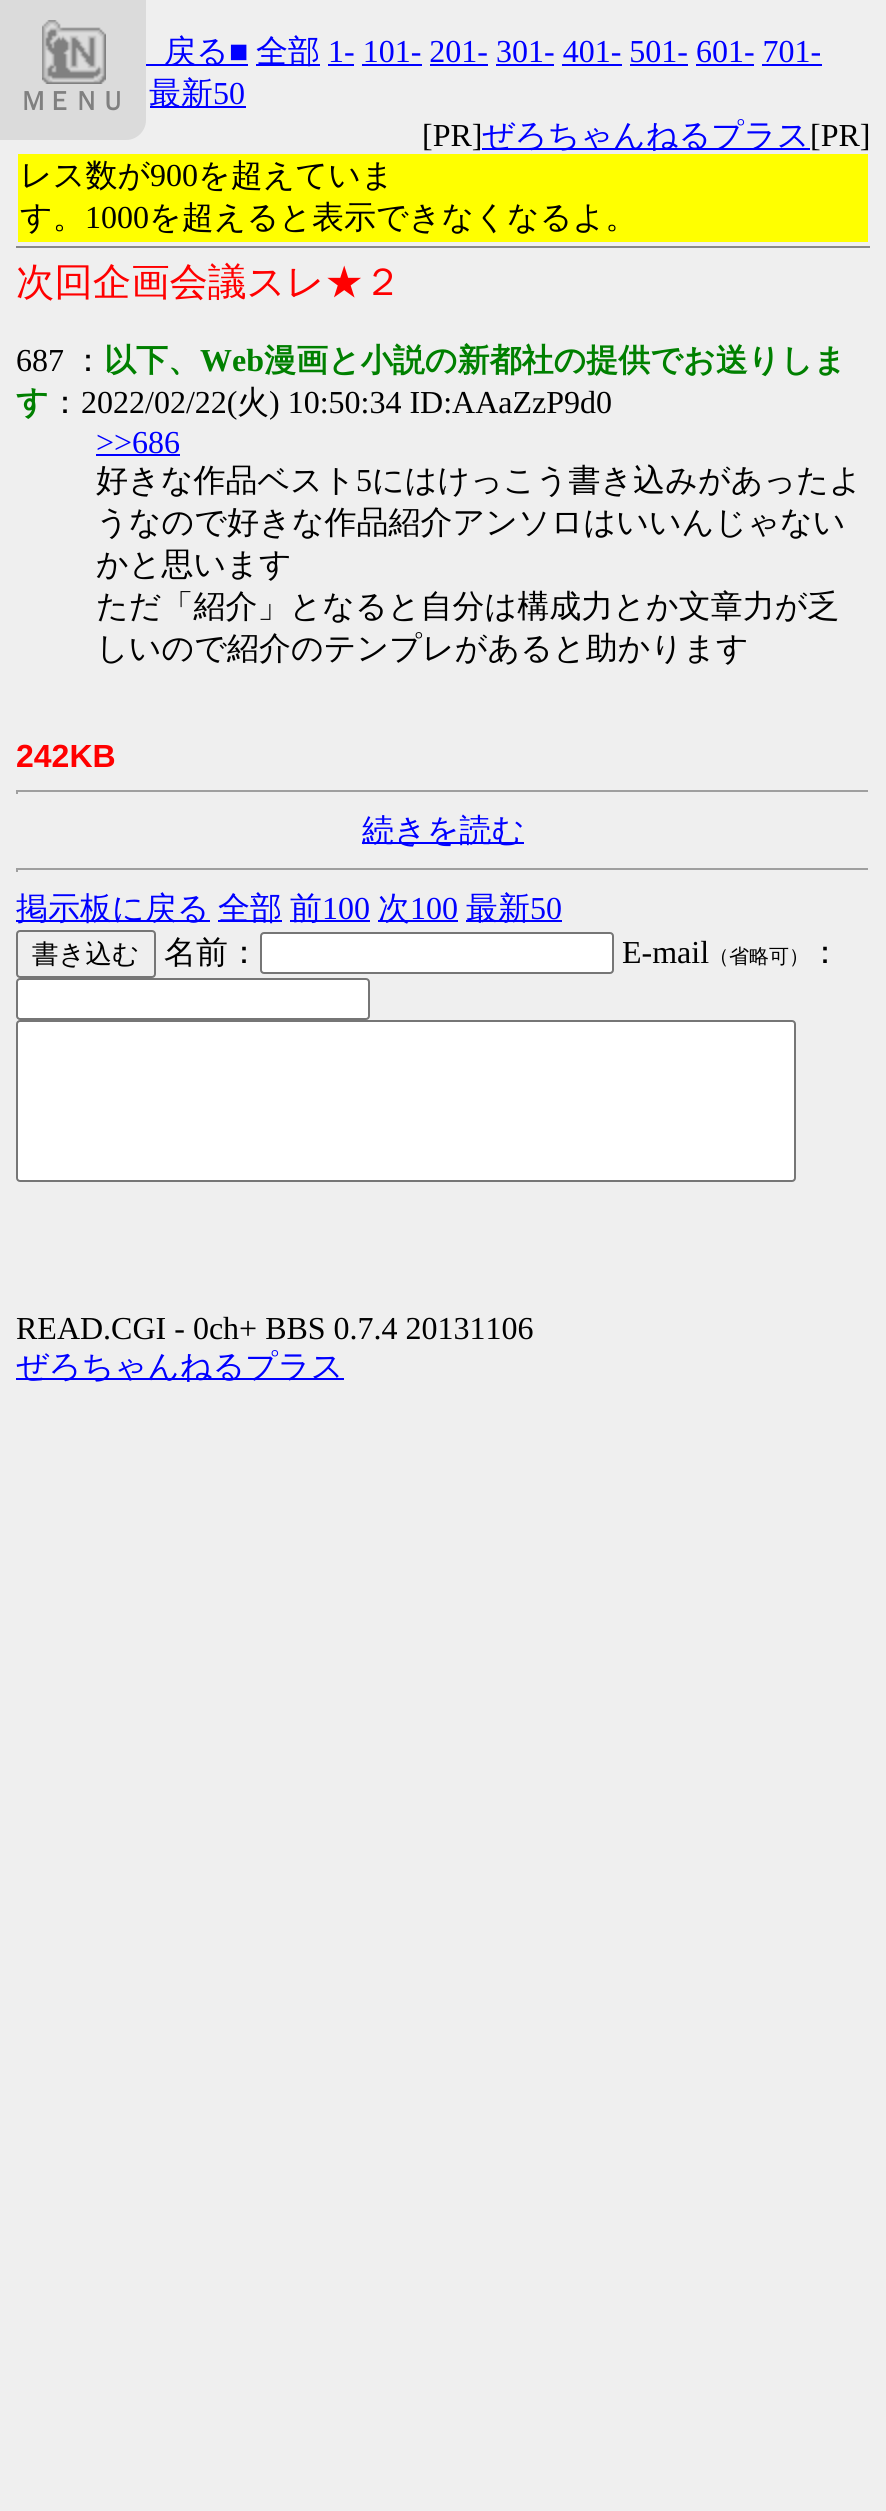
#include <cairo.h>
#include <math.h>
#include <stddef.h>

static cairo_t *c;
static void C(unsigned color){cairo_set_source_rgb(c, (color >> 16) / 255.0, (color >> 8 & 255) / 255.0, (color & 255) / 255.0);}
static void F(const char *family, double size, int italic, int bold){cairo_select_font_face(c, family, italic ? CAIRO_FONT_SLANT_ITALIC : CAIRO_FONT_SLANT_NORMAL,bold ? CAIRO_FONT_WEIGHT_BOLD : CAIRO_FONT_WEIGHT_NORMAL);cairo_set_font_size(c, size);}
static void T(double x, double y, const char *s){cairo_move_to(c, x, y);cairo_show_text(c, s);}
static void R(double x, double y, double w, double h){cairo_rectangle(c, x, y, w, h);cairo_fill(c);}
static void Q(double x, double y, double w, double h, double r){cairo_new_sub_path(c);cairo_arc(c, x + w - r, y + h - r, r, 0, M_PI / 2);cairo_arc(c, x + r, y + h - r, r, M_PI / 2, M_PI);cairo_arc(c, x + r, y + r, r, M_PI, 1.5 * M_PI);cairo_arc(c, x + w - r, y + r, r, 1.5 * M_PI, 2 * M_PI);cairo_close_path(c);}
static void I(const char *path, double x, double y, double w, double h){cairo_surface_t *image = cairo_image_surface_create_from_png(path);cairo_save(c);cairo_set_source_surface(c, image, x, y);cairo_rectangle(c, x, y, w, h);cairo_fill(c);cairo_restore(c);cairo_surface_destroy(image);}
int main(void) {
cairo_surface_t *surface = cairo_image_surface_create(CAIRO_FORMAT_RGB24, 886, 2511);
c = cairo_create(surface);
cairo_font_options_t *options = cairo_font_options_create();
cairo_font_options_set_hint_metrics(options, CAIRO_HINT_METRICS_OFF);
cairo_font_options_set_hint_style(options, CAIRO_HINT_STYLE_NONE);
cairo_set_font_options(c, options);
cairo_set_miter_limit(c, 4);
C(0xefefef);
cairo_paint(c);
C(0xdbdbdb);
cairo_new_path(c);
cairo_move_to(c,0,0);
cairo_line_to(c,146,0);
cairo_line_to(c,146,120);
cairo_curve_to(c,146,131,137,140,126,140);
cairo_line_to(c,0,140);
cairo_close_path(c);
cairo_fill(c);
I("1.png",42,20,64,64);
F("WenQuanYi Zen Hei",26.5,0,1);
C(0x808080);
T(20,110,"ＭＥＮＵ");
C(0x0000ff);
R(146,64,102,2);
F("WenQuanYi Zen Hei Medium",32,0,0);
T(164,62,"戻る");
F("Liberation Serif",32,0,0);
T(229,62,"■");
R(256,64,64,2);
F("WenQuanYi Zen Hei Medium",32,0,0);
T(256,62,"全部");
F("Liberation Serif",32,0,0);
T(328,62,"1- 101- 201- 301- 401- 501- 601- 701-");
R(328,64,26,2);
R(362,64,60,2);
R(430,64,58,2);
R(496,64,58,2);
R(562,64,60,2);
R(630,64,58,2);
R(696,64,58,2);
R(762,64,60,2);
R(150,106,96,2);
F("WenQuanYi Zen Hei Medium",32,0,0);
T(149,104,"最新");
F("Liberation Serif",32,0,0);
T(213,104,"50");
C(0x000000);
T(422,146,"[PR]");
C(0x0000ff);
R(482,148,328,2);
F("WenQuanYi Zen Hei Medium",32,0,0);
T(482,146,"ぜろちゃんねるプラス");
F("Liberation Serif",32,0,0);
C(0x000000);
T(810,146,"[PR]");
C(0xffff00);
R(18,154,850,88);
F("WenQuanYi Zen Hei Medium",32,0,0);
C(0x000000);
T(20,186,"レス数が");
F("Liberation Serif",32,0,0);
T(150,186,"900");
F("WenQuanYi Zen Hei Medium",32,0,0);
T(198,186,"を超えていま");
T(20,228,"す。");
F("Liberation Serif",32,0,0);
T(85,228,"1000");
F("WenQuanYi Zen Hei Medium",32,0,0);
T(149,228,"を超えると表示できなくなるよ。");
C(0x888888);
R(16,246,854,2);
F("WenQuanYi Zen Hei Medium",38.4,0,0);
C(0xff0000);
T(16,295,"次回企画会議スレ★２");
F("Liberation Serif",32,0,0);
C(0x000000);
T(16,371,"687");
F("WenQuanYi Zen Hei Medium",32,0,0);
T(72,371,"：");
F("WenQuanYi Zen Hei",32,0,1);
C(0x008000);
T(104,371,"以下、");
F("Liberation Serif",32,0,1);
T(200,371,"Web");
F("WenQuanYi Zen Hei",32,0,1);
T(264,371,"漫画と小説の新都社の提供でお送りしま");
T(16,413,"す");
F("WenQuanYi Zen Hei Medium",32,0,0);
C(0x000000);
T(49,413,"：");
F("Liberation Serif",32,0,0);
T(81,413,"2022/02/22(");
F("WenQuanYi Zen Hei Medium",32,0,0);
T(237,413,"火");
F("Liberation Serif",32,0,0);
T(269,413,") 10:50:34 ID:AAaZzP9d0");
C(0x0000ff);
T(96,453,">>686");
R(96,454,84,2);
F("WenQuanYi Zen Hei Medium",32,0,0);
C(0x000000);
T(96,491,"好きな作品ベスト");
F("Liberation Serif",32,0,0);
T(356,491,"5");
F("WenQuanYi Zen Hei Medium",32,0,0);
T(372,491,"にはけっこう書き込みがあったよ");
T(96,533,"うなので好きな作品紹介アンソロはいいんじゃない");
T(96,575,"かと思います");
T(96,617,"ただ「紹介」となると自分は構成力とか文章力が乏");
T(96,659,"しいので紹介のテンプレがあると助かります");
F("Liberation Sans",32,0,1);
C(0xff0000);
T(16,767,"242KB");
C(0x9f9f9f);
R(16,790,854,2);
C(0xeeeeee);
R(868,790,2,4);
C(0x9f9f9f);
R(16,790,2,4);
C(0x0000ff);
R(362,842,162,2);
F("WenQuanYi Zen Hei Medium",32,0,0);
T(362,841,"続きを読む");
C(0x9f9f9f);
R(16,868,854,2);
C(0xeeeeee);
R(868,868,2,4);
C(0x9f9f9f);
R(16,868,2,4);
C(0x0000ff);
R(16,920,194,2);
T(16,919,"掲示板に戻る");
R(218,920,64,2);
T(218,919,"全部");
R(290,920,80,2);
T(290,919,"前");
F("Liberation Serif",32,0,0);
T(322,919,"100");
R(378,920,80,2);
F("WenQuanYi Zen Hei Medium",32,0,0);
T(378,919,"次");
F("Liberation Serif",32,0,0);
T(410,919,"100");
R(466,920,96,2);
F("WenQuanYi Zen Hei Medium",32,0,0);
T(466,919,"最新");
F("Liberation Serif",32,0,0);
T(530,919,"50");
Q(17,931,138,46,3);
C(0x767676);
cairo_stroke(c);
F("WenQuanYi Zen Hei Medium",26.5,0,0);
C(0x000000);
T(32,963,"書き込む");
F("WenQuanYi Zen Hei Medium",32,0,0);
T(164,963,"名前：");
C(0xffffff);
Q(261,933,352,40,3);
cairo_fill_preserve(c);
C(0x767676);
cairo_stroke(c);
F("Liberation Serif",32,0,0);
C(0x000000);
T(622,963,"E-mail");
F("WenQuanYi Zen Hei Medium",20,0,0);
T(709,963,"（省略可）");
F("WenQuanYi Zen Hei Medium",32,0,0);
T(809,963,"：");
C(0xffffff);
Q(17,979,352,40,3);
cairo_fill_preserve(c);
C(0x767676);
cairo_stroke(c);
C(0xffffff);
Q(17,1021,778,160,3);
cairo_fill_preserve(c);
C(0x767676);
cairo_stroke(c);
F("Liberation Serif",32,0,0);
C(0x000000);
T(16,1339,"READ.CGI - 0ch+ BBS 0.7.4 20131106");
C(0x0000ff);
R(16,1378,328,2);
F("WenQuanYi Zen Hei Medium",32,0,0);
T(16,1377,"ぜろちゃんねるプラス");
cairo_surface_write_to_png(surface, "o.png");
cairo_font_options_destroy(options);
cairo_destroy(c);
cairo_surface_destroy(surface);
return 0;
}
